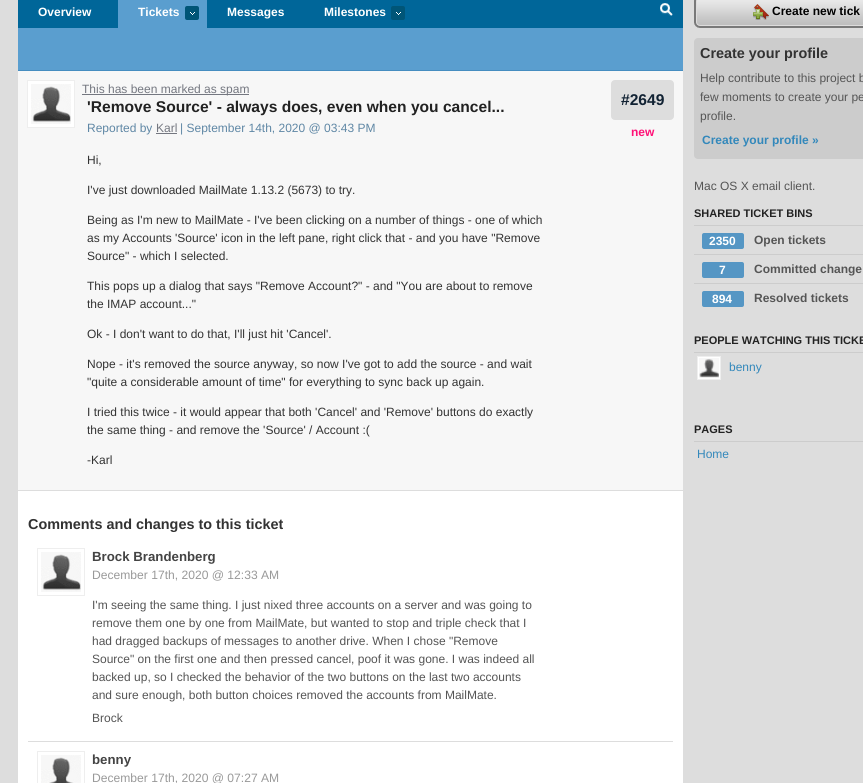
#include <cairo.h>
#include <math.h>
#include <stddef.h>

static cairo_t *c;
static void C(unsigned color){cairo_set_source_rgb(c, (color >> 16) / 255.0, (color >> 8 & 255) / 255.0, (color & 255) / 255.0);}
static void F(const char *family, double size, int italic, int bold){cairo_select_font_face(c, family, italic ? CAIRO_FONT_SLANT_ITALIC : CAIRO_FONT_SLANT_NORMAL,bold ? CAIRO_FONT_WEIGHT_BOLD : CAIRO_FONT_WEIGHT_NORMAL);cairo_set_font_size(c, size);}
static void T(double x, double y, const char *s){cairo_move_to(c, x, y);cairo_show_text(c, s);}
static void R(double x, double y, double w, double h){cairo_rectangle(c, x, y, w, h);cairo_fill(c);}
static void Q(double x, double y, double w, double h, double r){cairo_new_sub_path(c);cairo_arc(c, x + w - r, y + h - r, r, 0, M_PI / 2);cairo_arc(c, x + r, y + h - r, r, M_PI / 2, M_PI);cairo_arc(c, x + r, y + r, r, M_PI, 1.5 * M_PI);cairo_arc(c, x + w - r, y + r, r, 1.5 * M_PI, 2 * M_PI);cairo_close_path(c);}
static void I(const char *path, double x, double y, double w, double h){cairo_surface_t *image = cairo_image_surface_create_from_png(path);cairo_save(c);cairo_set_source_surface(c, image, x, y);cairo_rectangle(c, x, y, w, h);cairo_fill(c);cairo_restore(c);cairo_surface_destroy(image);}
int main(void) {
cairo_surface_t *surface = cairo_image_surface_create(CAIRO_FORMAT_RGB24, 863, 783);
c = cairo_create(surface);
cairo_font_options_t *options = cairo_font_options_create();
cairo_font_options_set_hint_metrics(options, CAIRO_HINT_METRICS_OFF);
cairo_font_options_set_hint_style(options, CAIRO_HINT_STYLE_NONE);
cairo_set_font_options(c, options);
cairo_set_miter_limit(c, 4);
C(0xdddddd);
cairo_paint(c);
C(0xffffff);
R(18,491,665,292);
C(0x006699);
R(18,0,665,28);
F("Liberation Sans",12,0,1);
C(0xffffff);
T(38,16,"Overview");
C(0x5a9ecf);
R(118,0,89,28);
C(0xffffff);
T(138,16,"Tickets");
C(0x005577);
Q(185,6,14,14,2);
cairo_fill(c);
I("1.png",190,12,5,3);
C(0xffffff);
T(227,16,"Messages");
T(324,16,"Milestones");
C(0x005577);
Q(391,6,14,14,2);
cairo_fill(c);
I("1.png",396,12,5,3);
I("2.png",660,3,13,13);
C(0x5a9ecf);
R(18,28,665,42);
C(0x468dc0);
R(18,70,665,1);
C(0xf7f7f7);
R(18,71,665,419);
C(0xffffff);
cairo_rectangle(c,27.5,80.5,47,47);
cairo_fill_preserve(c);
C(0xeeeeee);
cairo_set_line_width(c,1);
cairo_stroke(c);
I("3.png",31,84,40,40);
C(0x747780);
R(82,94,167,1);
F("Liberation Sans",12,0,0);
T(82,93,"This has been marked as spam");
F("Liberation Sans",15.6,0,1);
C(0x222222);
T(87,112,"'Remove Source' - always does, even when you cancel...");
F("Liberation Sans",12,0,0);
C(0x5f87a5);
T(87,132,"Reported by");
C(0x747780);
T(156,132,"Karl");
R(156,133,21,1);
C(0x5f87a5);
T(180,132,"| September 14th, 2020 @ 03:43 PM");
C(0x333333);
T(87,164,"Hi,");
T(87,194,"I've just downloaded MailMate 1.13.2 (5673) to try.");
T(87,224,"Being as I'm new to MailMate - I've been clicking on a number of things - one of which");
T(87,242,"as my Accounts 'Source' icon in the left pane, right click that - and you have \"Remove");
T(87,260,"Source\" - which I selected.");
T(87,290,"This pops up a dialog that says \"Remove Account?\" - and \"You are about to remove");
T(87,308,"the IMAP account...\"");
T(87,338,"Ok - I don't want to do that, I'll just hit 'Cancel'.");
T(87,368,"Nope - it's removed the source anyway, so now I've got to add the source - and wait");
T(87,386,"\"quite a considerable amount of time\" for everything to sync back up again.");
T(87,416,"I tried this twice - it would appear that both 'Cancel' and 'Remove' buttons do exactly");
T(87,434,"the same thing - and remove the 'Source' / Account :(");
T(87,464,"-Karl");
C(0xdddddd);
Q(611,80,63,40,4);
cairo_fill(c);
F("Liberation Sans",15.6,0,1);
C(0x112233);
T(621,105,"#2649");
F("Liberation Sans",12,0,1);
C(0xff1177);
T(631,136,"new");
F("Liberation Sans",14.4,0,1);
C(0x333333);
T(28,529,"Comments and changes to this ticket");
C(0xdddddd);
R(28,741,645,1);
cairo_rectangle(c,37.5,548.5,47,47);
C(0xeeeeee);
cairo_stroke(c);
I("3.png",41,552,40,40);
F("Liberation Sans",13.25,0,1);
C(0x444444);
T(92,561,"Brock Brandenberg");
F("Liberation Sans",12.1,0,0);
C(0x999999);
T(92,579,"December 17th, 2020 @ 12:33 AM");
F("Liberation Sans",12,0,0);
C(0x555555);
T(92,609,"I'm seeing the same thing. I just nixed three accounts on a server and was going to");
T(92,627,"remove them one by one from MailMate, but wanted to stop and triple check that I");
T(92,645,"had dragged backups of messages to another drive. When I chose \"Remove");
T(92,663,"Source\" on the first one and then pressed cancel, poof it was gone. I was indeed all");
T(92,681,"backed up, so I checked the behavior of the two buttons on the last two accounts");
T(92,699,"and sure enough, both button choices removed the accounts from MailMate.");
T(92,722,"Brock");
cairo_rectangle(c,37.5,751.5,47,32);
C(0xeeeeee);
cairo_stroke(c);
I("4.png",41,755,40,28);
F("Liberation Sans",13.25,0,1);
C(0x444444);
T(92,764,"benny");
F("Liberation Sans",12.1,0,0);
C(0x999999);
T(92,782,"December 17th, 2020 @ 07:27 AM");
I("5.png",694,0,169,28);
I("6.png",753,4,16,16);
F("Liberation Sans",12,0,1);
C(0x000000);
T(772,15,"Create new tick");
C(0xcccccc);
Q(694,38,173,121,4);
cairo_fill(c);
F("Liberation Sans",14.4,0,1);
C(0x333333);
T(700,58,"Create your profile");
F("Liberation Sans",12,0,0);
C(0x555555);
T(700,82,"Help contribute to this project b");
T(700,101,"few moments to create your pe");
T(700,120,"profile.");
F("Liberation Sans",12,0,1);
C(0x3388bb);
T(702,144,"Create your profile »");
F("Liberation Sans",12,0,0);
C(0x555555);
T(694,190,"Mac OS X email client.");
F("Liberation Sans",11,0,1);
C(0x222222);
T(694,217,"SHARED TICKET BINS");
C(0xcccccc);
R(694,225,169,1);
C(0x5596c4);
Q(702,233,42,16,2);
cairo_fill(c);
F("Liberation Sans",12,0,1);
C(0xffffff);
T(709,245,"2350");
C(0x555555);
T(754,244,"Open tickets");
C(0xcccccc);
R(694,254,169,1);
C(0x5596c4);
Q(702,262,42,16,2);
cairo_fill(c);
C(0xffffff);
T(719,274,"7");
C(0x555555);
T(754,273,"Committed change");
C(0xcccccc);
R(694,283,169,1);
C(0x5596c4);
Q(702,291,42,16,2);
cairo_fill(c);
C(0xffffff);
T(712,303,"894");
C(0x555555);
T(754,302,"Resolved tickets");
F("Liberation Sans",11,0,1);
C(0x222222);
T(694,344,"PEOPLE WATCHING THIS TICKE");
C(0xcccccc);
R(694,352,169,1);
C(0xffffff);
cairo_rectangle(c,697.5,356.5,23,23);
cairo_fill_preserve(c);
C(0xeeeeee);
cairo_stroke(c);
I("7.png",699,358,20,20);
F("Liberation Sans",12,0,0);
C(0x3388bb);
T(729,371,"benny");
F("Liberation Sans",11,0,1);
C(0x222222);
T(694,433,"PAGES");
C(0xcccccc);
R(694,441,169,1);
F("Liberation Sans",12,0,0);
C(0x3388bb);
T(697,458,"Home");
cairo_surface_write_to_png(surface, "o.png");
cairo_font_options_destroy(options);
cairo_destroy(c);
cairo_surface_destroy(surface);
return 0;
}
